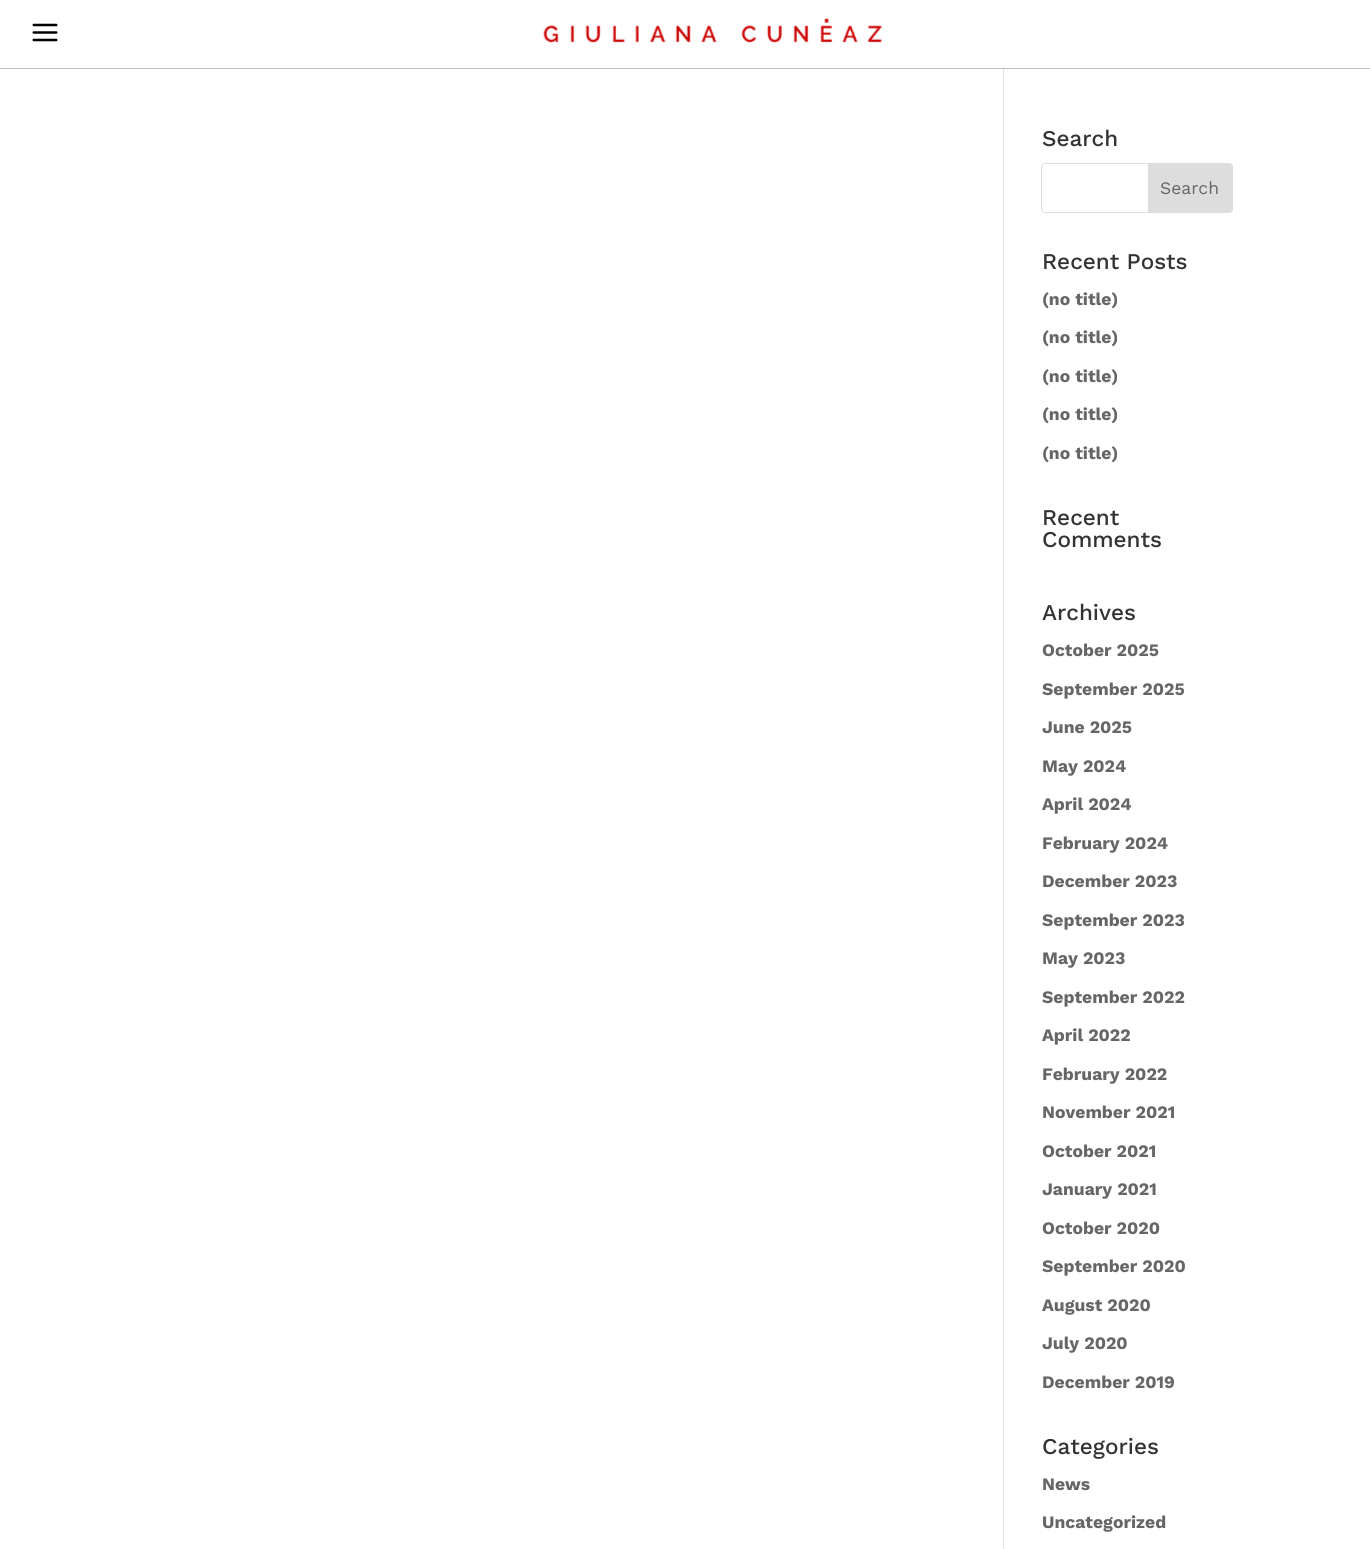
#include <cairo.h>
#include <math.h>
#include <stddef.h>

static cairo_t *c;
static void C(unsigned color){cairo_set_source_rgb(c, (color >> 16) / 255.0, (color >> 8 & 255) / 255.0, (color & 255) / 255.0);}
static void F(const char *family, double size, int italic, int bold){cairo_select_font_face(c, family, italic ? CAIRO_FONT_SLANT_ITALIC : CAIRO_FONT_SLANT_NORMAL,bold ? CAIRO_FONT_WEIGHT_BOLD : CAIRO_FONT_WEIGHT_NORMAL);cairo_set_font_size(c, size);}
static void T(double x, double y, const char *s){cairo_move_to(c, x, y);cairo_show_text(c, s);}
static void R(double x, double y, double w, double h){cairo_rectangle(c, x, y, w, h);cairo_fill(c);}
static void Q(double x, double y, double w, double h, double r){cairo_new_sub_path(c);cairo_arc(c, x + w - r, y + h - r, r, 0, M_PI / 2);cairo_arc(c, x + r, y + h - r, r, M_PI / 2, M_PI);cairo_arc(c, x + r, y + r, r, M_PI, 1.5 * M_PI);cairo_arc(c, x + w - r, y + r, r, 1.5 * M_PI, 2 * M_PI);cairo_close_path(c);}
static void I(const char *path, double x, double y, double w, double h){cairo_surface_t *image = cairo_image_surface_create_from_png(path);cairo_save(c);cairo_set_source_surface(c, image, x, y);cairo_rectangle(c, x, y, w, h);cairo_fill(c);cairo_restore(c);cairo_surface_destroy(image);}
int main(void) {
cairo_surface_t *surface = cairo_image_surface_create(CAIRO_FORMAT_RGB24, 1370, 1549);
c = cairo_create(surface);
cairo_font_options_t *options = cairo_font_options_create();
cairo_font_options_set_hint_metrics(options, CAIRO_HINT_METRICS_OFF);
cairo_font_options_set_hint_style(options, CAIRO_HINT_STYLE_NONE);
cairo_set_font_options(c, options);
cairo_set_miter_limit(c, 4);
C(0xffffff);
cairo_paint(c);
C(0xbfbfbf);
R(0,68,1370,1);
I("1.png",32,23,26,19);
I("2.png",543,18,339,25);
C(0xe2e2e2);
R(1003,69,1,1480);
F("Work Sans Medium",22.5,0,0);
C(0x333333);
T(1042,146,"Search");
Q(1041.5,163.5,191,49,3.5);
C(0xdddddd);
cairo_set_line_width(c,1);
cairo_stroke(c);
cairo_new_path(c);
cairo_move_to(c,1148.5,163.5);
cairo_line_to(c,1229,163.5);
cairo_curve_to(c,1231,163.5,1232.5,165,1232.5,167);
cairo_line_to(c,1232.5,209);
cairo_curve_to(c,1232.5,211,1231,212.5,1229,212.5);
cairo_line_to(c,1148.5,212.5);
cairo_close_path(c);
cairo_fill_preserve(c);
cairo_stroke(c);
F("Work Sans",17.5,0,0);
C(0x666666);
T(1160,194,"Search");
F("Work Sans Medium",22.5,0,0);
C(0x333333);
T(1042,269,"Recent Posts");
F("Work Sans",17.5,0,1);
C(0x666666);
T(1042,305,"(no title)");
T(1042,343,"(no title)");
T(1042,382,"(no title)");
T(1042,420,"(no title)");
T(1042,459,"(no title)");
F("Work Sans Medium",22.5,0,0);
C(0x333333);
T(1042,525,"Recent");
T(1042,547,"Comments");
T(1042,620,"Archives");
F("Work Sans",17.5,0,1);
C(0x666666);
T(1042,656,"October 2025");
T(1042,695,"September 2025");
T(1042,733,"June 2025");
T(1042,772,"May 2024");
T(1042,810,"April 2024");
T(1042,849,"February 2024");
T(1042,887,"December 2023");
T(1042,926,"September 2023");
T(1042,964,"May 2023");
T(1042,1003,"September 2022");
T(1042,1041,"April 2022");
T(1042,1080,"February 2022");
T(1042,1118,"November 2021");
T(1042,1157,"October 2021");
T(1042,1195,"January 2021");
T(1042,1234,"October 2020");
T(1042,1272,"September 2020");
T(1042,1311,"August 2020");
T(1042,1349,"July 2020");
T(1042,1388,"December 2019");
F("Work Sans Medium",22.5,0,0);
C(0x333333);
T(1042,1454,"Categories");
F("Work Sans",17.5,0,1);
C(0x666666);
T(1042,1490,"News");
T(1042,1528,"Uncategorized");
cairo_surface_write_to_png(surface, "o.png");
cairo_font_options_destroy(options);
cairo_destroy(c);
cairo_surface_destroy(surface);
return 0;
}
